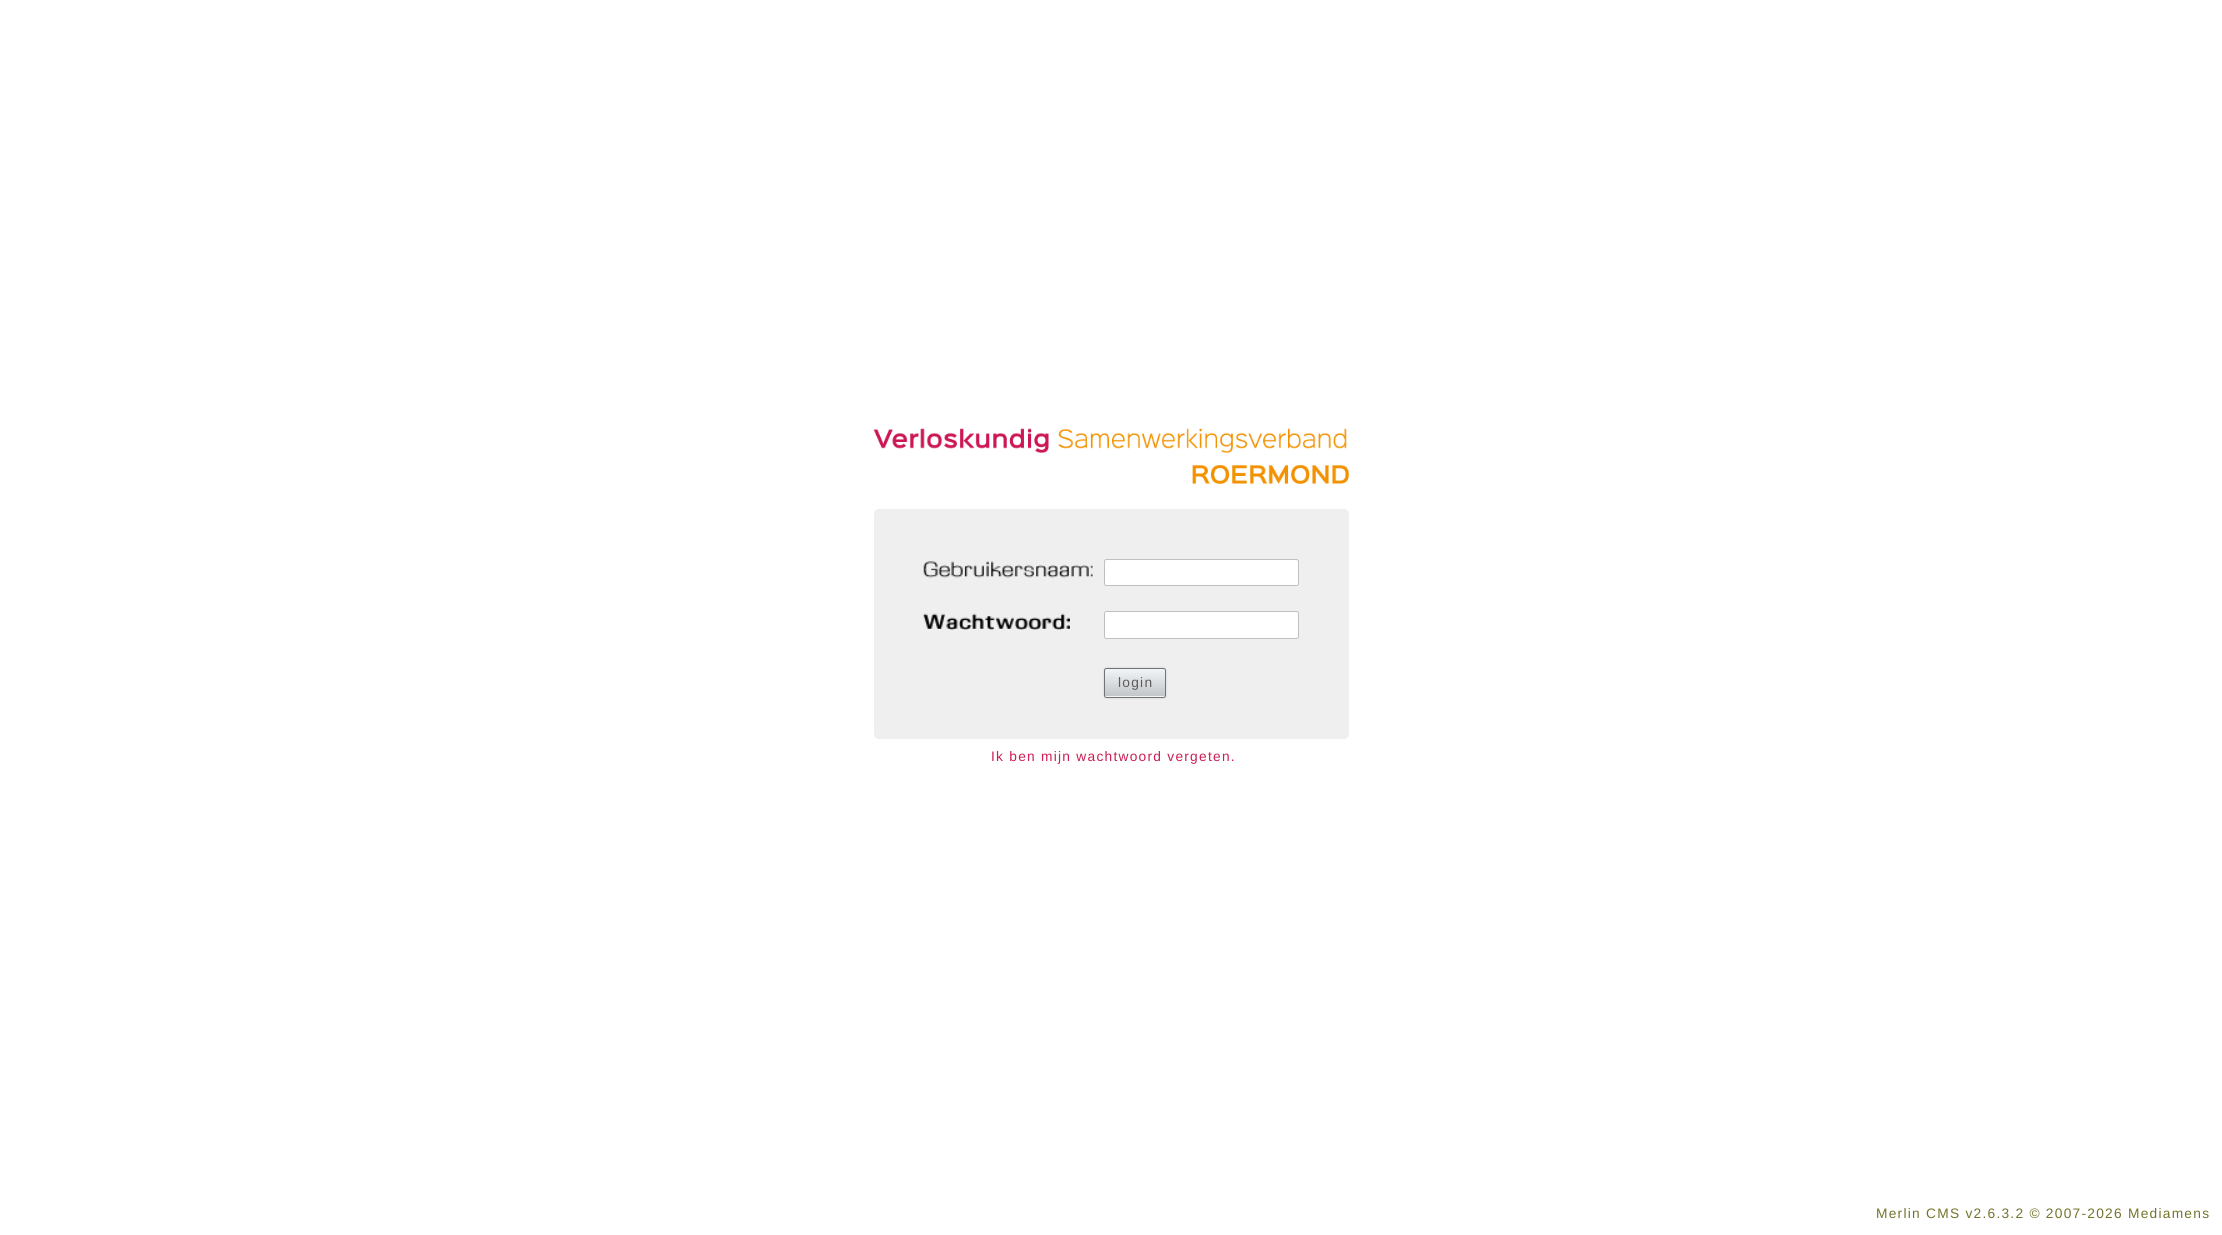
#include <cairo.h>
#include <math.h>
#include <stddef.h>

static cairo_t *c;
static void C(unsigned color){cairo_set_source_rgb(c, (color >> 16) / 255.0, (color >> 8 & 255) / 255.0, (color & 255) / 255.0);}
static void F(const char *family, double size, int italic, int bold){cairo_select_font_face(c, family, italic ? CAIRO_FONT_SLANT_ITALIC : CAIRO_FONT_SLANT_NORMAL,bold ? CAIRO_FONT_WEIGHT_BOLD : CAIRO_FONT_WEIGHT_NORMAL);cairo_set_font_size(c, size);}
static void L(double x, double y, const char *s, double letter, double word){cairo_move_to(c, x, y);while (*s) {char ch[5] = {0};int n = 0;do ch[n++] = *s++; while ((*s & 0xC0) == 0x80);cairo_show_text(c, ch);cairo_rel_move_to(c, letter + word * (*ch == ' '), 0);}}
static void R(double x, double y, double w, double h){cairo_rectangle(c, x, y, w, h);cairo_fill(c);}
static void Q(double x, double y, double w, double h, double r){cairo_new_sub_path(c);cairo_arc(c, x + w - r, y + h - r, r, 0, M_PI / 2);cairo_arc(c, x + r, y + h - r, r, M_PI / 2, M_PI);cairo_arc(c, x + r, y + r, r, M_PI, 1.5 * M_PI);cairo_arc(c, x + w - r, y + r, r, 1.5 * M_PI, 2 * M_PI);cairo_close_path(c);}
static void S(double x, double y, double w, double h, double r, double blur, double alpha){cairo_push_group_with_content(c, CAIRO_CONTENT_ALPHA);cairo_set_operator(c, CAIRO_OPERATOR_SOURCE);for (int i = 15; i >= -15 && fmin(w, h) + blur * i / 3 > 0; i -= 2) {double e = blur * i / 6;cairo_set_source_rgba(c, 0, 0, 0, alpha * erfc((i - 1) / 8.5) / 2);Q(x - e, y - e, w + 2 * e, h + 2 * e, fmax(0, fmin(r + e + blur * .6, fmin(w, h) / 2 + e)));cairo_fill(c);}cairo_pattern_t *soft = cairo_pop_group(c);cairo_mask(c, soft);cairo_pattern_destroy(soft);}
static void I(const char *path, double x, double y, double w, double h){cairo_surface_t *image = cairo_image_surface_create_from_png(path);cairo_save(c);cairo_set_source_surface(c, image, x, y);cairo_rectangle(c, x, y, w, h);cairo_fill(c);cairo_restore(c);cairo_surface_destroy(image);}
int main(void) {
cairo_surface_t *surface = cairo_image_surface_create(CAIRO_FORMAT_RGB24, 2222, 1235);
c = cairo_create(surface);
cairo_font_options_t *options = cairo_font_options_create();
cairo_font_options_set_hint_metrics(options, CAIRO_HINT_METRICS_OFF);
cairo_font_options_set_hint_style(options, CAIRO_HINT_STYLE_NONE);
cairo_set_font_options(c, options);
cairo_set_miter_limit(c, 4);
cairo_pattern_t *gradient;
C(0xffffff);
cairo_paint(c);
I("1.png",873,428,476,56);
C(0xefefef);
Q(874,509,475,230,5);
cairo_fill(c);
I("2.png",923,561,170,17);
C(0xffffff);
Q(1104.5,559.5,194,26,2);
cairo_fill_preserve(c);
C(0xbfbfbf);
cairo_set_line_width(c,1);
cairo_stroke(c);
I("3.png",923,613,147,17);
C(0xffffff);
Q(1104.5,611.5,194,27,2);
cairo_fill_preserve(c);
C(0xbfbfbf);
cairo_stroke(c);
C(0x000000);
S(1104,668,62,30,2.5,1,.15);
gradient = cairo_pattern_create_linear(1135,669,1135,696);
cairo_pattern_add_color_stop_rgba(gradient,0,0.949,0.961,0.965,1);
cairo_pattern_add_color_stop_rgba(gradient,1,0.765,0.776,0.788,1);
cairo_set_source(c,gradient);
cairo_pattern_destroy(gradient);
R(1104,669,62,27);
cairo_save(c);
Q(1104,668,62,30,2.5);
cairo_clip(c);
gradient = cairo_pattern_create_linear(1135,696,1135,724);
cairo_pattern_add_color_stop_rgba(gradient,0,0.949,0.961,0.965,1);
cairo_pattern_add_color_stop_rgba(gradient,1,0.765,0.776,0.788,1);
cairo_set_source(c,gradient);
cairo_pattern_destroy(gradient);
R(1104,696,62,2);
cairo_restore(c);
Q(1104.5,668.5,61,29,2);
C(0x727374);
cairo_stroke(c);
F("Liberation Sans",13.75,0,0);
C(0x5b5b5b);
L(1118,687,"login",1.25,0);
C(0xcc1e54);
L(991,761,"Ik ben mijn wachtwoord vergeten.",1.25,0);
C(0x74742c);
L(1876,1218,"Merlin CMS v2.6.3.2 © 2007-2026 Mediamens",1.25,0);
cairo_surface_write_to_png(surface, "o.png");
cairo_font_options_destroy(options);
cairo_destroy(c);
cairo_surface_destroy(surface);
return 0;
}
